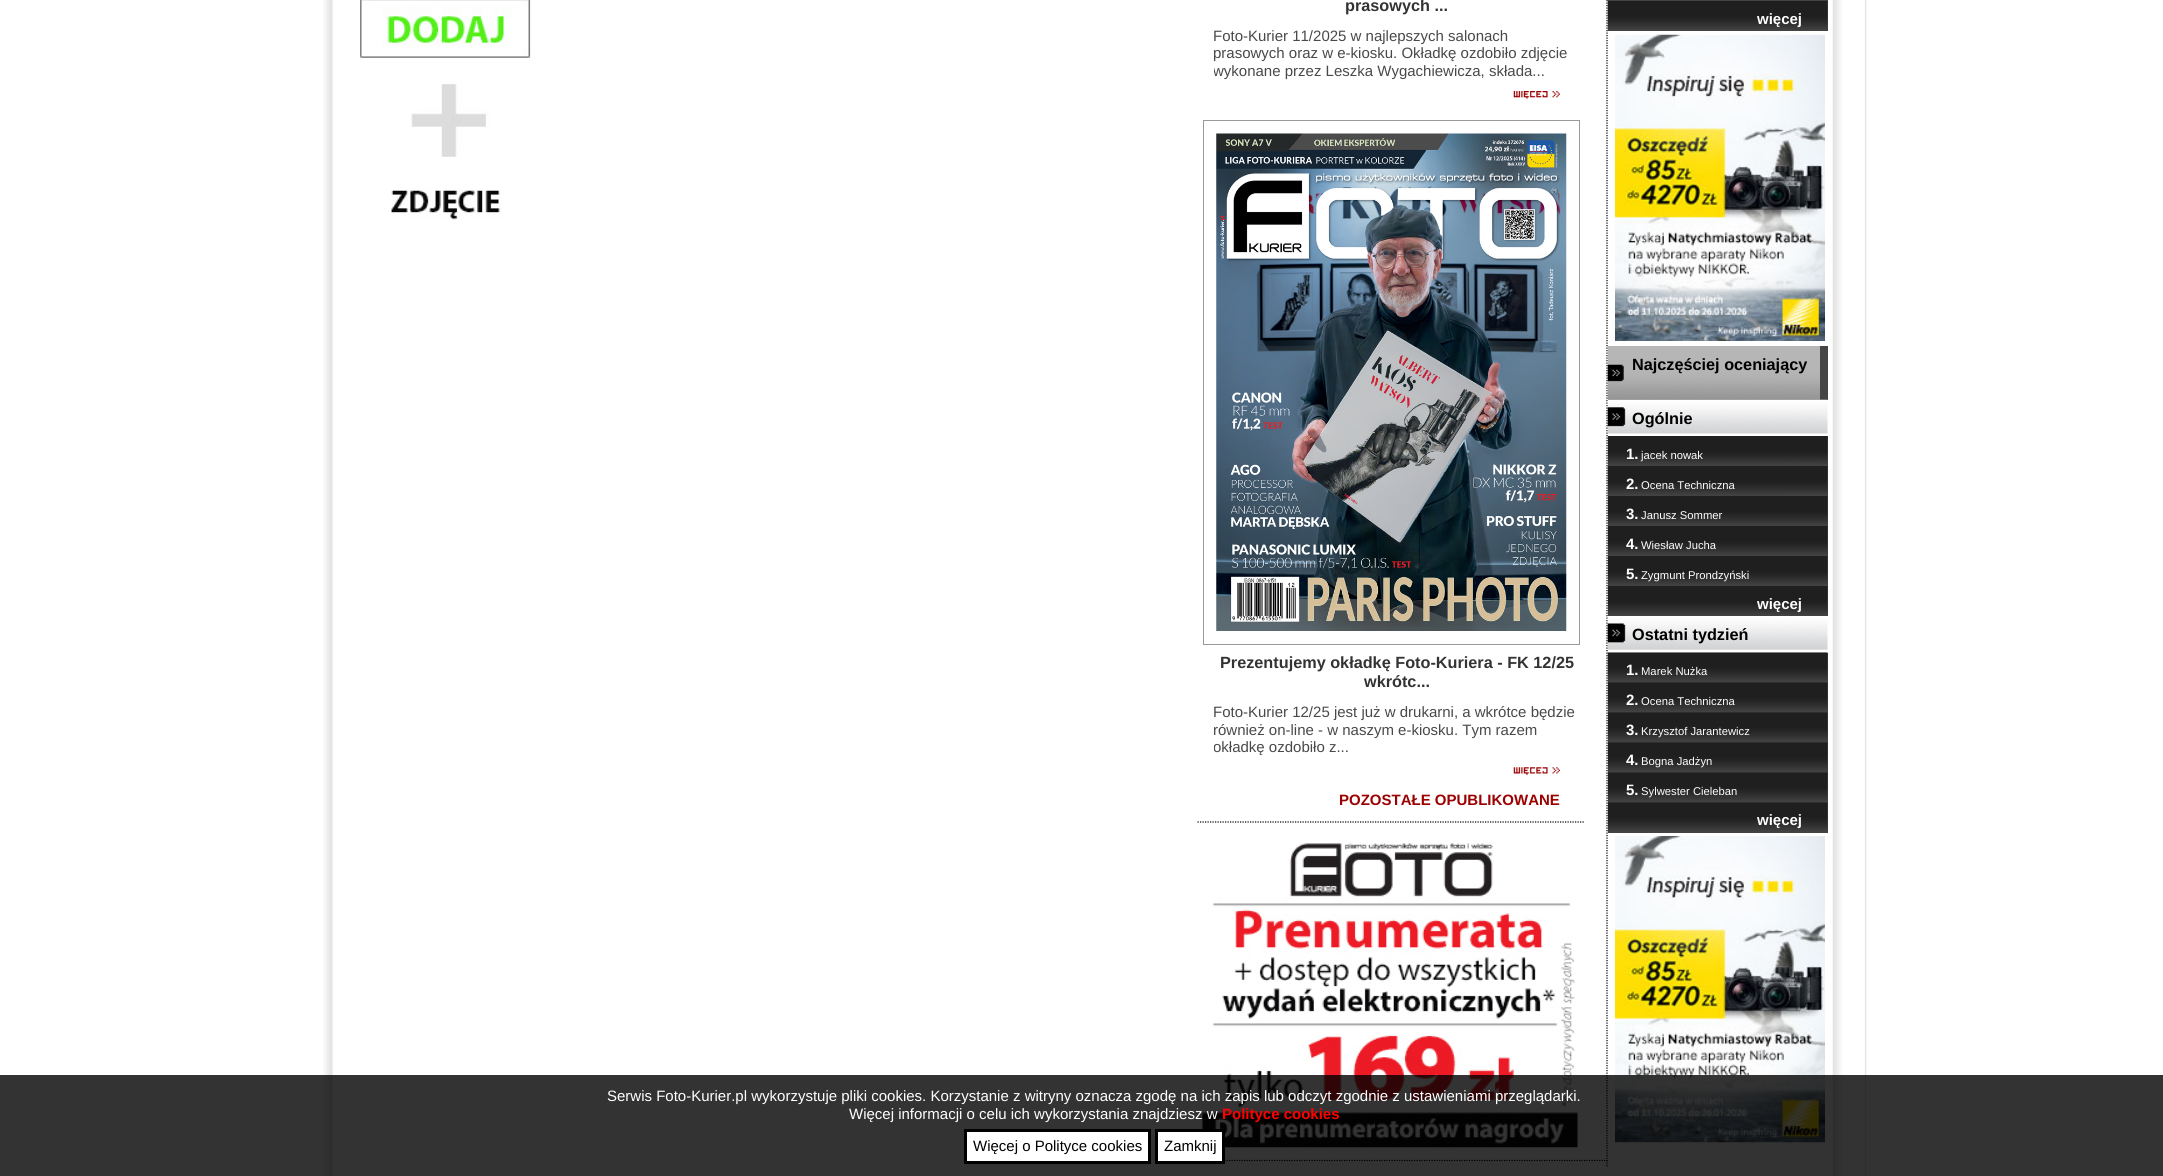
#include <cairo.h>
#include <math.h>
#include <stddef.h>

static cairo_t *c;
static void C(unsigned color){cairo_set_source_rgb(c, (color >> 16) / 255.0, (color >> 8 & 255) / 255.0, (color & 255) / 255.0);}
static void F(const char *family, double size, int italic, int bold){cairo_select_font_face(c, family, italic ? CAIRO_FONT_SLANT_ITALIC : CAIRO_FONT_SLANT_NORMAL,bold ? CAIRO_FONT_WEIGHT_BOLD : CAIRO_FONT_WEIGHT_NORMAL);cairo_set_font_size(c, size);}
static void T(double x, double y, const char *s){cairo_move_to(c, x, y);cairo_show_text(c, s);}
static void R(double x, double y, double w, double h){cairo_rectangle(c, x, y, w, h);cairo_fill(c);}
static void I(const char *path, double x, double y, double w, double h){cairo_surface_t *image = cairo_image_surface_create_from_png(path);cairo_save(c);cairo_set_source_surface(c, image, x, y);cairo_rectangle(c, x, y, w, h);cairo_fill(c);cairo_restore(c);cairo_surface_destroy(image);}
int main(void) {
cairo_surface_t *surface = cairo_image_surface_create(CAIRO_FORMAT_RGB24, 2163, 1176);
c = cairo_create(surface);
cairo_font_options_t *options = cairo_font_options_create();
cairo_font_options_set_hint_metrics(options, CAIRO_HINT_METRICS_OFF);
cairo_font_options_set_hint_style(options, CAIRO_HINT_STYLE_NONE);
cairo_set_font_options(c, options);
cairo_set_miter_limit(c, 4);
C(0xffffff);
cairo_paint(c);
I("1.png",323,0,10,1176);
I("2.png",360,0,171,220);
cairo_new_path(c);
cairo_move_to(c,1607,-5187.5);
cairo_line_to(c,1607,1167.5);
C(0x000000);
cairo_set_line_width(c,1.2);
cairo_set_dash(c,(double[]){1.25,1.25},2,0);
cairo_stroke(c);
cairo_new_path(c);
cairo_move_to(c,1197.5,822);
cairo_line_to(c,1585,822);
cairo_stroke(c);
F("Liberation Sans",16.25,0,1);
C(0x333333);
T(1345,11,"prasowych ...");
F("Liberation Sans",15,0,0);
C(0x494949);
T(1213,41,"Foto-Kurier 11/2025 w najlepszych salonach");
T(1213,58,"prasowych oraz w e-kiosku. Okładkę ozdobiło zdjęcie");
cairo_save(c);
cairo_rectangle(c,1214,15,367,65);
cairo_clip(c);
T(1213,76,"wykonane przez Leszka Wygachiewicza, składa...");
cairo_restore(c);
I("3.png",1513,91,47,8);
cairo_rectangle(c,1203.5,120.5,376,524);
C(0x999999);
cairo_set_line_width(c,1);
cairo_set_dash(c,NULL,0,0);
cairo_stroke(c);
I("4.png",1216,133,351,498);
F("Liberation Sans",16.25,0,1);
C(0x333333);
T(1220,668,"Prezentujemy okładkę Foto-Kuriera - FK 12/25");
T(1364,687,"wkrótc...");
F("Liberation Sans",15,0,0);
C(0x494949);
T(1213,717,"Foto-Kurier 12/25 jest już w drukarni, a wkrótce będzie");
T(1213,735,"również on-line - w naszym e-kiosku. Tym razem");
cairo_save(c);
cairo_rectangle(c,1214,691,367,65);
cairo_clip(c);
T(1213,752,"okładkę ozdobiło z...");
cairo_restore(c);
I("5.png",1513,767,47,8);
F("Liberation Sans",15,0,1);
C(0x9d0000);
T(1339,805,"POZOSTAŁE OPUBLIKOWANE");
cairo_new_path(c);
cairo_move_to(c,1174,1160.5);
cairo_line_to(c,1607.5,1160.5);
C(0x000000);
cairo_set_line_width(c,1.2);
cairo_set_dash(c,(double[]){1.25,1.25},2,0);
cairo_stroke(c);
I("6.png",1202,843,376,305);
C(0x434343);
R(1608,0,220,1);
C(0x5d5c5d);
R(1607,0,1,1);
C(0x434343);
R(1827,1,1,30);
I("7.png",1607,1,221,30);
C(0xffffff);
T(1757,24,"więcej");
I("8.png",1615,34,210,307);
C(0x454545);
R(1608,346,220,54);
I("9.png",1607,346,213,54);
F("Liberation Sans",16.25,0,1);
C(0x000000);
T(1632,370,"Najczęściej oceniający");
I("10.png",1607,399,221,35);
T(1632,424,"Ogólnie");
C(0x434343);
R(1827,436,1,180);
I("11.png",1607,436,221,30);
F("Liberation Sans",15,0,1);
C(0xffffff);
T(1626,459,"1.");
F("Liberation Sans",11.25,0,0);
T(1641,459,"jacek nowak");
I("12.png",1607,466,221,30);
F("Liberation Sans",15,0,1);
T(1626,489,"2.");
F("Liberation Sans",11.25,0,0);
T(1641,489,"Ocena Techniczna");
I("13.png",1607,496,221,30);
F("Liberation Sans",15,0,1);
T(1626,519,"3.");
F("Liberation Sans",11.25,0,0);
T(1641,519,"Janusz Sommer");
I("13.png",1607,526,221,30);
F("Liberation Sans",15,0,1);
T(1626,549,"4.");
F("Liberation Sans",11.25,0,0);
T(1641,549,"Wiesław Jucha");
I("14.png",1607,556,221,30);
F("Liberation Sans",15,0,1);
T(1626,579,"5.");
F("Liberation Sans",11.25,0,0);
T(1641,579,"Zygmunt Prondzyński");
I("14.png",1607,586,221,30);
F("Liberation Sans",15,0,1);
T(1757,609,"więcej");
I("15.png",1607,616,221,34);
F("Liberation Sans",16.25,0,1);
C(0x000000);
T(1632,640,"Ostatni tydzień");
C(0x434343);
R(1608,653,220,180);
I("16.png",1607,652,221,31);
F("Liberation Sans",15,0,1);
C(0xffffff);
T(1626,675,"1.");
F("Liberation Sans",11.25,0,0);
T(1641,675,"Marek Nużka");
I("17.png",1607,682,221,30);
F("Liberation Sans",15,0,1);
T(1626,705,"2.");
F("Liberation Sans",11.25,0,0);
T(1641,705,"Ocena Techniczna");
I("18.png",1607,712,221,30);
F("Liberation Sans",15,0,1);
T(1626,735,"3.");
F("Liberation Sans",11.25,0,0);
T(1641,735,"Krzysztof Jarantewicz");
I("18.png",1607,742,221,30);
F("Liberation Sans",15,0,1);
T(1626,765,"4.");
F("Liberation Sans",11.25,0,0);
T(1641,765,"Bogna Jadżyn");
I("18.png",1607,772,221,30);
F("Liberation Sans",15,0,1);
T(1626,795,"5.");
F("Liberation Sans",11.25,0,0);
T(1641,795,"Sylwester Cieleban");
I("18.png",1607,802,221,30);
F("Liberation Sans",15,0,1);
T(1757,825,"więcej");
I("19.png",1615,836,210,307);
I("20.png",1832,0,35,1176);
cairo_set_source_rgba(c,0,0,0,0.8);
R(0,1075,2163,101);
F("Liberation Sans",15,0,0);
C(0xffffff);
T(607,1101,"Serwis Foto-Kurier.pl wykorzystuje pliki cookies. Korzystanie z witryny oznacza zgodę na ich zapis lub odczyt zgodnie z ustawieniami przeglądarki.");
T(849,1119,"Więcej informacji o celu ich wykorzystania znajdziesz w");
F("Liberation Sans",15,0,1);
C(0xff0000);
T(1222,1119,"Polityce cookies");
C(0xffffff);
cairo_rectangle(c,965.5,1130.5,184,32);
cairo_fill_preserve(c);
C(0x000000);
cairo_set_line_width(c,3);
cairo_set_dash(c,NULL,0,0);
cairo_stroke(c);
F("Liberation Sans",15,0,0);
T(973,1151,"Więcej o Polityce cookies");
C(0xffffff);
cairo_rectangle(c,1156.5,1130.5,67,32);
cairo_fill_preserve(c);
C(0x000000);
cairo_stroke(c);
T(1164,1151,"Zamknij");
cairo_surface_write_to_png(surface, "o.png");
cairo_font_options_destroy(options);
cairo_destroy(c);
cairo_surface_destroy(surface);
return 0;
}
